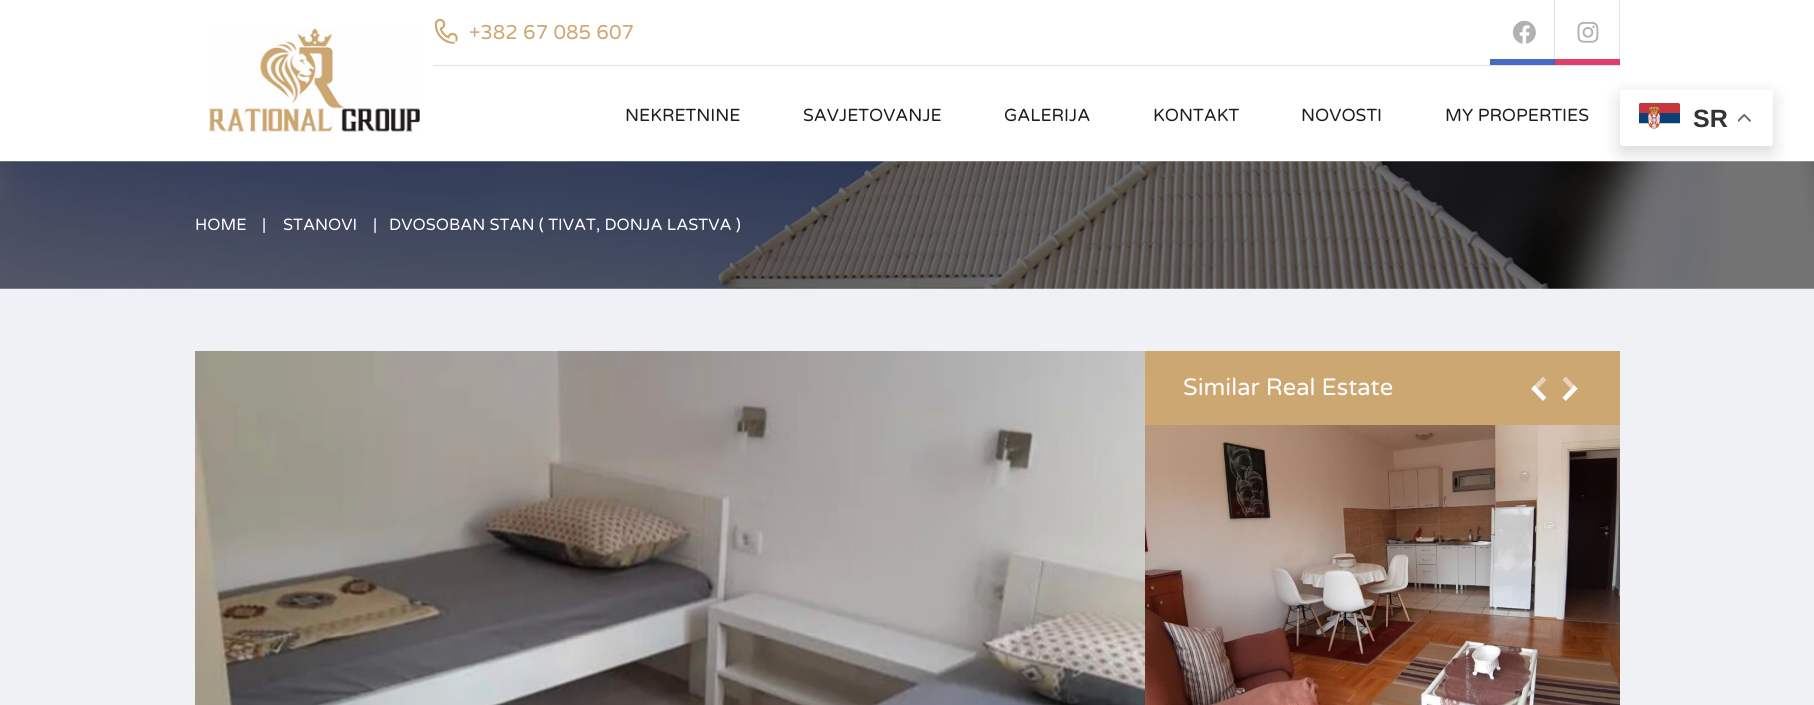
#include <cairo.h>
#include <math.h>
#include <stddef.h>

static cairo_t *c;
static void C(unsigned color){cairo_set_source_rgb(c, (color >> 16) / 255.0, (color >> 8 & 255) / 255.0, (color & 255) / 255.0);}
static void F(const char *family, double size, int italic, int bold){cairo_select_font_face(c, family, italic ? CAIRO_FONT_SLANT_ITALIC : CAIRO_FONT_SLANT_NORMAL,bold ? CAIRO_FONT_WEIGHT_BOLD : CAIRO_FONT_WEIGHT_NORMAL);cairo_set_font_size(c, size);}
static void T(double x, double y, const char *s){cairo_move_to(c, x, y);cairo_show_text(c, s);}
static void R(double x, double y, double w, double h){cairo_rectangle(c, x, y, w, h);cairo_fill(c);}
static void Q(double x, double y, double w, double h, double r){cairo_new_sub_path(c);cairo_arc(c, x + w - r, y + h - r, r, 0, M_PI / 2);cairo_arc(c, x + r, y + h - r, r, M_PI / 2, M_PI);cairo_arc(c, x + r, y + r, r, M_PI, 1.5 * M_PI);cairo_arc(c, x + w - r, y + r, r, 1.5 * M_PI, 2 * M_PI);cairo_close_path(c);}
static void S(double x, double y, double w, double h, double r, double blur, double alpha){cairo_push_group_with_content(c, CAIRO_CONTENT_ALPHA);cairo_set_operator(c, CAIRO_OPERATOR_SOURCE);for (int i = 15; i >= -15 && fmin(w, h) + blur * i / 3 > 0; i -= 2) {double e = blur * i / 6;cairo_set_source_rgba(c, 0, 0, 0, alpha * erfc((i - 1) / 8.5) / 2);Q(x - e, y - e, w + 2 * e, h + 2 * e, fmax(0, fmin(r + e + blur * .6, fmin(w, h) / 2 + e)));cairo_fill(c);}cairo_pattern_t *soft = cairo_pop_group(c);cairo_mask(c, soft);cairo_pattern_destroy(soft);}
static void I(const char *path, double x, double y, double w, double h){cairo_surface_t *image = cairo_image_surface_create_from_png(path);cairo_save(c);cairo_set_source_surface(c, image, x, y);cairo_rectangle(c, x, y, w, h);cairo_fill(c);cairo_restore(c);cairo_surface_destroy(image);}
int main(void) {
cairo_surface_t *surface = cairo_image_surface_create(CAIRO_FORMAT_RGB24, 1814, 705);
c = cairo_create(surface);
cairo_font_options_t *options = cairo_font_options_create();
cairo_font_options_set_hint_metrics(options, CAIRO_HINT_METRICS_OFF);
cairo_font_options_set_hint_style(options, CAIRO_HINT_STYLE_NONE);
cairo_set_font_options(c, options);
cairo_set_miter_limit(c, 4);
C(0xeff1f5);
cairo_paint(c);
C(0xffffff);
R(0,0,1814,161);
I("1.png",208,28,212,105);
C(0xe2e2e2);
R(433,65,1187,1);
I("2.png",434,19,24,25);
F("Varela Round",20,0,0);
C(0xcda771);
T(469,39,"+382 67 085 607");
C(0x466bc6);
R(1490,59,65,6);
C(0xe2e2e2);
R(1554,0,1,59);
I("3.png",1512,20,24,24);
C(0xe03f6c);
R(1555,59,65,6);
C(0xe2e2e2);
R(1619,0,1,59);
I("4.png",1577,21,22,22);
F("Varela Round",17.5,0,0);
C(0x191c20);
T(625,121,"NEKRETNINE");
T(803,121,"SAVJETOVANJE");
T(1004,121,"GALERIJA");
T(1153,121,"KONTAKT");
T(1301,121,"NOVOSTI");
T(1445,121,"MY PROPERTIES");
C(0x000000);
S(1620,96,153,57,2.5,9.5,.15);
C(0xffffff);
Q(1620,90,153,56,2.5);
cairo_fill(c);
I("5.png",1639,103,41,26);
F("Liberation Sans",25,0,1);
C(0x333333);
T(1693,127,"SR");
I("6.png",1738,113,13,9);
I("7.png",0,161,1814,128);
F("Varela Round",16.25,0,0);
C(0xffffff);
T(195,230,"HOME");
T(262,230,"|");
T(283,230,"STANOVI");
T(373,230,"|");
T(389,230,"DVOSOBAN STAN ( TIVAT, DONJA LASTVA )");
I("8.png",195,351,950,354);
C(0xcda771);
R(1145,351,475,74);
F("Varela Round",23.75,0,0);
C(0xffffff);
T(1183,395,"Similar Real Estate");
I("9.png",1531,376,16,25);
I("10.png",1562,376,16,25);
I("11.png",1145,425,475,280);
cairo_surface_write_to_png(surface, "o.png");
cairo_font_options_destroy(options);
cairo_destroy(c);
cairo_surface_destroy(surface);
return 0;
}
